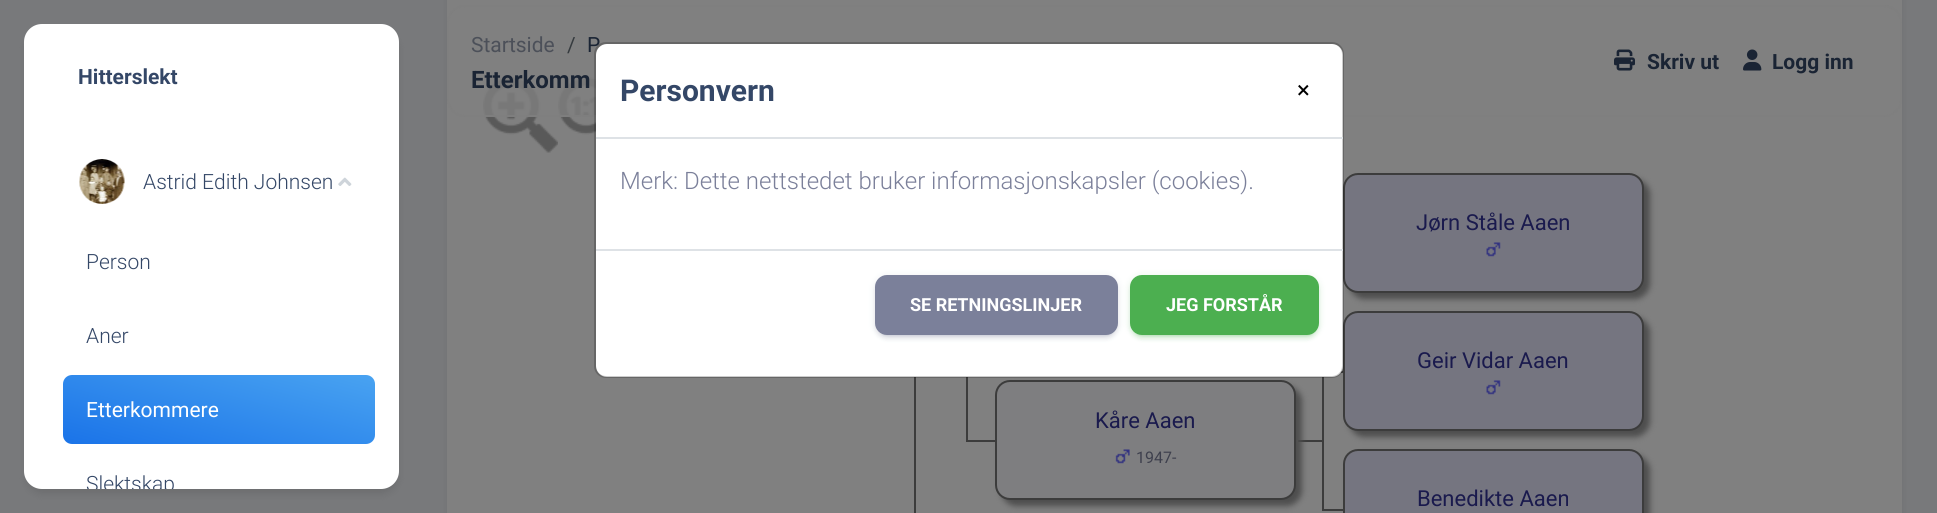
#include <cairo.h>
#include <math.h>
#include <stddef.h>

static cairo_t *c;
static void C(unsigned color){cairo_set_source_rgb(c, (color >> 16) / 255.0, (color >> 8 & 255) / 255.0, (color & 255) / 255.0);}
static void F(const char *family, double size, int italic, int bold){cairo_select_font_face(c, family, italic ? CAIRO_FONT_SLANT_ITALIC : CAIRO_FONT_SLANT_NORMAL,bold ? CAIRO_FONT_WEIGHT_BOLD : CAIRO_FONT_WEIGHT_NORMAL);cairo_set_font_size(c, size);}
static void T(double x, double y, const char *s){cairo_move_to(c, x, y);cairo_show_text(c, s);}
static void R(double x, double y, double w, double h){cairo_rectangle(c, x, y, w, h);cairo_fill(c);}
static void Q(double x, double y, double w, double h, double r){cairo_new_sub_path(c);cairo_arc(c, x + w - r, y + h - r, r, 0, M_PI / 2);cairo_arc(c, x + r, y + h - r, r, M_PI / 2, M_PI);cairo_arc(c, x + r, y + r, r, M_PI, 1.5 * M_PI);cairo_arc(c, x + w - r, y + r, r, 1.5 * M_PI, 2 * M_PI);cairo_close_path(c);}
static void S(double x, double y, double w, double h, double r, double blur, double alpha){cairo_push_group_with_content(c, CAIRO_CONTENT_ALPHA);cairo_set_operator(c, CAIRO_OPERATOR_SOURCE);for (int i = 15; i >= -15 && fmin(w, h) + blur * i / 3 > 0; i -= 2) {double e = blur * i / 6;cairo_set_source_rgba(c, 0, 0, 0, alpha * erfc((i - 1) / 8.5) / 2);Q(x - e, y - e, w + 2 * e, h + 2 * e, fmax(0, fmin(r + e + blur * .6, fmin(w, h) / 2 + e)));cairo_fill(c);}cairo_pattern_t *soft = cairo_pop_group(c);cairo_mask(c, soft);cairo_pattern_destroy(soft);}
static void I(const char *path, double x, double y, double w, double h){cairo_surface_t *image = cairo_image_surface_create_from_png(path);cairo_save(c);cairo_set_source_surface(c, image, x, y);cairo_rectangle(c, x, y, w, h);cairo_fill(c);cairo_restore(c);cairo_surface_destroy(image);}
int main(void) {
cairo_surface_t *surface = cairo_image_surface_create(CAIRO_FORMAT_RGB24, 1937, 513);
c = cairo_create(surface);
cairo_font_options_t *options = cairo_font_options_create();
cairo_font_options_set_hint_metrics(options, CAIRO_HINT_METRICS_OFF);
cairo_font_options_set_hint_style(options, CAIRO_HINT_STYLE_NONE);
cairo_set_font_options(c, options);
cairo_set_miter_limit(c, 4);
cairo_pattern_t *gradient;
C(0x78797b);
cairo_paint(c);
C(0x000000);
S(26,32,372,462,17,4.5,.1);
C(0xffffff);
Q(24,24,375,465,18);
cairo_fill(c);
F("Roboto",21,0,1);
C(0x344767);
T(78,84,"Hitterslekt");
I("1.png",79,159,46,45);
F("Roboto Light",21,0,0);
T(143,189,"Astrid Edith Johnsen");
I("2.png",338,177,14,9);
T(86,269,"Person");
T(86,343,"Aner");
gradient = cairo_pattern_create_linear(238,338,200,481);
cairo_pattern_add_color_stop_rgba(gradient,0,0.286,0.639,0.945,1);
cairo_pattern_add_color_stop_rgba(gradient,1,0.102,0.451,0.91,1);
cairo_set_source(c,gradient);
cairo_pattern_destroy(gradient);
Q(63,375,312,69,9);
cairo_fill(c);
F("Roboto",21,0,0);
C(0xffffff);
T(86,417,"Etterkommere");
cairo_save(c);
Q(24,24,375,465,18);
cairo_clip(c);
F("Roboto Light",21,0,0);
C(0x344767);
T(86,491,"Slektskap");
cairo_restore(c);
C(0x000000);
S(449,-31,1452,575,17,4.5,.1);
C(0x808080);
R(447,0,1455,513);
I("5.png",483,77,75,76);
I("6.png",558,77,38,58);
cairo_set_source_rgba(c,0.502,0.502,0.502,0.8);
Q(447,5,1455,112,18);
cairo_fill(c);
Q(448,6,1453,110,17);
cairo_set_source_rgba(c,0.498,0.498,0.498,0.9);
cairo_stroke(c);
C(0x4c5059);
T(471,52,"Startside");
C(0x363b3f);
T(567,52,"/");
C(0x1a2434);
T(587,52,"P");
F("Roboto",24,0,1);
T(471,88,"Etterkomm");
I("3.png",1614,49,21,22);
F("Roboto",21,0,1);
T(1647,69,"Skriv ut");
I("4.png",1743,49,19,22);
T(1772,69,"Logg inn");
C(0x4d4d4d);
S(1349,179,301,120,15,3,1);
C(0x757580);
Q(1344,174,299,118,14);
cairo_fill_preserve(c);
C(0x3c3c3c);
cairo_stroke(c);
F("Roboto",22,0,0);
C(0x1a1a4d);
T(1416,230,"Jørn Ståle Aaen");
I("7.png",1486,242,15,15);
C(0x3c3c3c);
R(1340,371,7,2);
C(0x4d4d4d);
S(1349,317,301,120,15,3,1);
C(0x757580);
Q(1344,312,299,118,14);
cairo_fill_preserve(c);
C(0x3c3c3c);
cairo_stroke(c);
C(0x1a1a4d);
T(1417,368,"Geir Vidar Aaen");
I("7.png",1486,380,15,15);
C(0x3c3c3c);
R(914,377,2,136);
R(966,377,2,63);
R(966,440,33,2);
R(1298,440,24,2);
C(0x4d4d4d);
S(1001,386,301,120,15,3,1);
C(0x7e7e80);
Q(996,381,299,118,14);
cairo_fill_preserve(c);
C(0x3c3c3c);
cairo_stroke(c);
C(0x1a1a4d);
T(1095,428,"Kåre Aaen");
I("8.png",1115,449,15,15);
F("Roboto",16,0,0);
C(0x3e404d);
T(1136,463,"1947-");
C(0x3c3c3c);
R(1322,377,2,132);
R(1322,509,25,2);
C(0x4d4d4d);
S(1349,455,301,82,15,3,1);
C(0x757580);
Q(1344,450,299,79,14);
cairo_fill_preserve(c);
C(0x3c3c3c);
cairo_stroke(c);
F("Roboto",22,0,0);
C(0x1a1a4d);
T(1417,506,"Benedikte Aaen");
C(0xffffff);
Q(596,44,747,333,11);
cairo_fill(c);
Q(595,43,748,334,11);
cairo_set_source_rgba(c,0,0,0,0.2);
cairo_stroke(c);
C(0xdee2e6);
R(596,137,747,2);
F("Roboto",30,0,1);
C(0x344767);
T(620,101,"Personvern");
F("Roboto",24,0,0);
C(0x000000);
T(1297,98,"×");
F("Roboto Light",24,0,0);
C(0x7b809a);
T(620,189,"Merk: Dette nettstedet bruker informasjonskapsler (cookies).");
C(0xdee2e6);
R(596,249,747,2);
C(0x7b809a);
S(875,276,243,60,12,4,.15);
S(878,282,237,54,9,1,.2);
S(875,279,243,60,12,2,.15);
C(0x7b809a);
Q(875,275,243,60,12);
cairo_fill(c);
F("Roboto",18,0,1);
C(0xffffff);
T(910,311,"SE RETNINGSLINJER");
C(0x4caf50);
S(1130,276,189,60,12,4,.15);
S(1133,282,183,54,9,1,.2);
S(1130,279,189,60,12,2,.15);
C(0x4caf50);
Q(1130,275,189,60,12);
cairo_fill(c);
C(0xffffff);
T(1166,311,"JEG FORSTÅR");
cairo_surface_write_to_png(surface, "o.png");
cairo_font_options_destroy(options);
cairo_destroy(c);
cairo_surface_destroy(surface);
return 0;
}
